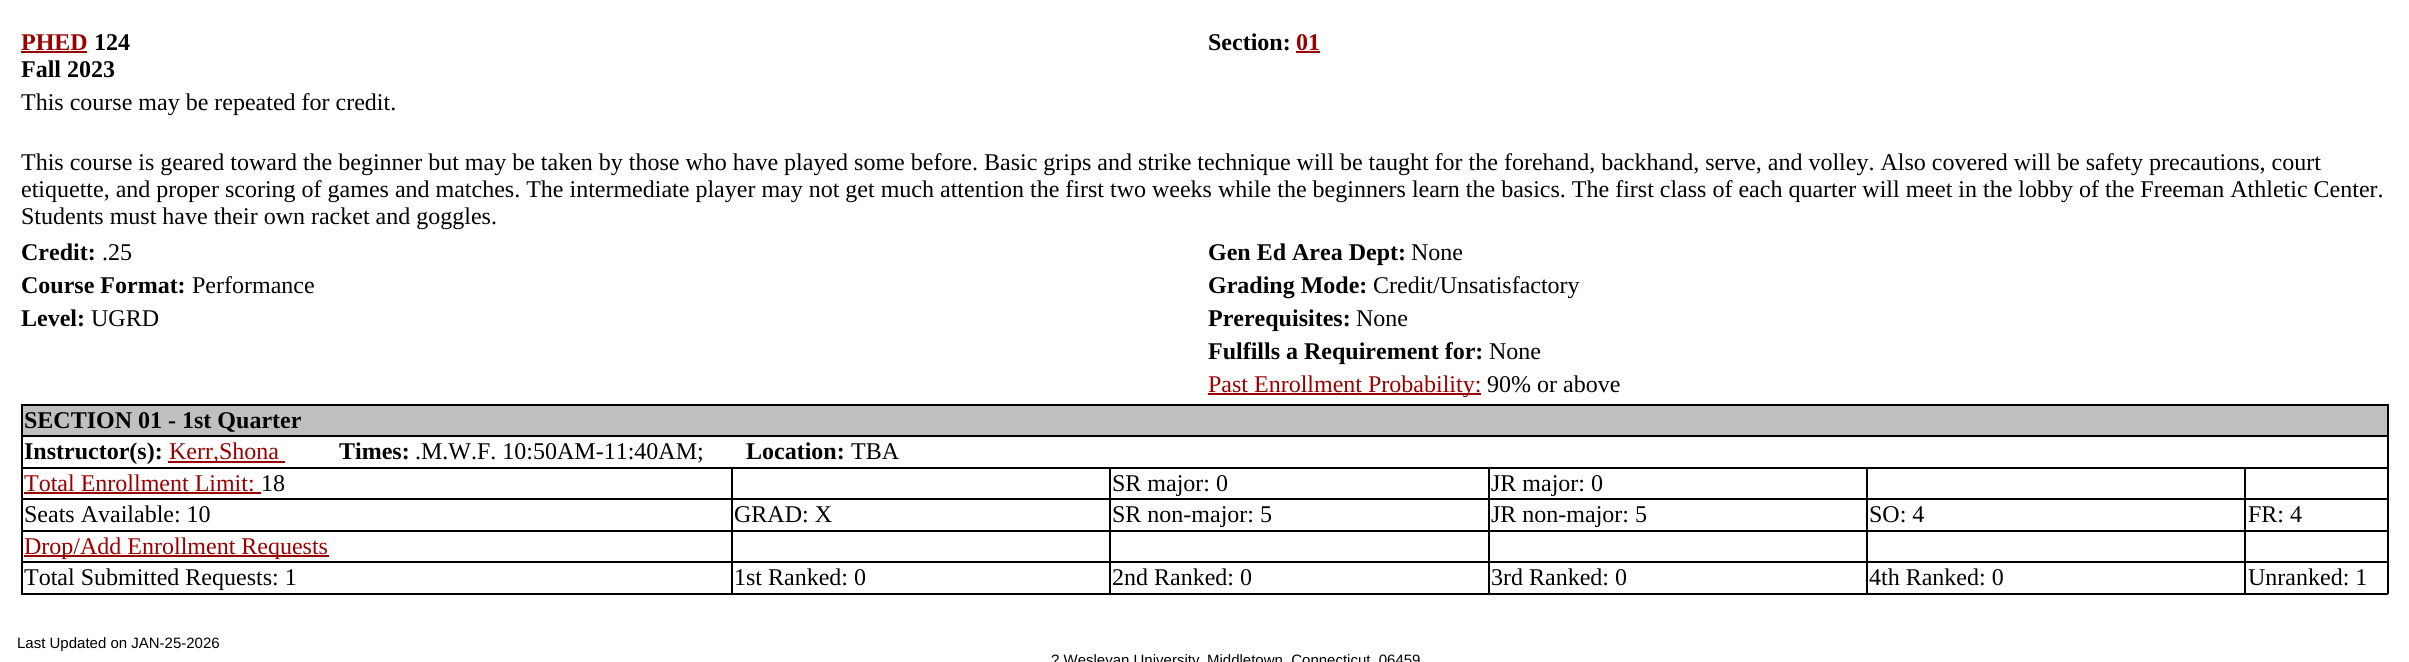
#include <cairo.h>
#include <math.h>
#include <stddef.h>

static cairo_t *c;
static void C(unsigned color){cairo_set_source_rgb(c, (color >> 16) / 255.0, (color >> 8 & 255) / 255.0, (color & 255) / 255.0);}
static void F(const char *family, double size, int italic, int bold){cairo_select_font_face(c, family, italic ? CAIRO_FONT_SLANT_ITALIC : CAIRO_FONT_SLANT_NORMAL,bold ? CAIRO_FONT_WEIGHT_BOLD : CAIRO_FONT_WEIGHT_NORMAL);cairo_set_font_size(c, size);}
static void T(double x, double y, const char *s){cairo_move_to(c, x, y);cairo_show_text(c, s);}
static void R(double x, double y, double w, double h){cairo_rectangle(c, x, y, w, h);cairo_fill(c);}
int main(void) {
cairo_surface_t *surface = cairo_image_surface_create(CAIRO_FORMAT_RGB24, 2409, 662);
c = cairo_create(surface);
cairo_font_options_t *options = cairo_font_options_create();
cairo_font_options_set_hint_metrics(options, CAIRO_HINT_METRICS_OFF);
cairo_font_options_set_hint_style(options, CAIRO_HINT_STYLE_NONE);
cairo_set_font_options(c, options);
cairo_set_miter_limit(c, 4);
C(0xffffff);
cairo_paint(c);
F("Liberation Serif",24,0,1);
C(0x990000);
T(21,50,"PHED");
R(21,51,66,2);
C(0x000000);
T(94,50,"124");
T(21,77,"Fall 2023");
T(1208,50,"Section:");
C(0x990000);
T(1296,50,"01");
R(1296,51,24,2);
F("Liberation Serif",24,0,0);
C(0x000000);
T(21,110,"This course may be repeated for credit.");
T(21,170,"This course is geared toward the beginner but may be taken by those who have played some before. Basic grips and strike technique will be taught for the forehand, backhand, serve, and volley. Also covered will be safety precautions, court");
T(21,197,"etiquette, and proper scoring of games and matches. The intermediate player may not get much attention the first two weeks while the beginners learn the basics. The first class of each quarter will meet in the lobby of the Freeman Athletic Center.");
T(21,224,"Students must have their own racket and goggles.");
F("Liberation Serif",24,0,1);
T(21,260,"Credit:");
F("Liberation Serif",24,0,0);
T(102,260,".25");
F("Liberation Serif",24,0,1);
T(1208,260,"Gen Ed Area Dept:");
F("Liberation Serif",24,0,0);
T(1411,260,"None");
F("Liberation Serif",24,0,1);
T(21,293,"Course Format:");
F("Liberation Serif",24,0,0);
T(192,293,"Performance");
F("Liberation Serif",24,0,1);
T(1208,293,"Grading Mode:");
F("Liberation Serif",24,0,0);
T(1373,293,"Credit/Unsatisfactory");
F("Liberation Serif",24,0,1);
T(21,326,"Level:");
F("Liberation Serif",24,0,0);
T(91,326,"UGRD");
F("Liberation Serif",24,0,1);
T(1208,326,"Prerequisites:");
F("Liberation Serif",24,0,0);
T(1356,326,"None");
F("Liberation Serif",24,0,1);
T(1208,359,"Fulfills a Requirement for:");
F("Liberation Serif",24,0,0);
T(1489,359,"None");
C(0x990000);
R(1208,393,273,2);
T(1208,392,"Past Enrollment Probability:");
C(0x000000);
T(1487,392,"90% or above");
R(21,404,2367,2);
R(2387,404,2,190);
R(21,593,2367,2);
R(21,404,2,190);
C(0xc0c0c0);
R(23,406,2364,29);
F("Liberation Serif",24,0,1);
C(0x000000);
T(24,428,"SECTION 01 - 1st Quarter");
R(21,435,2367,2);
T(24,459,"Instructor(s):");
C(0x990000);
R(168,461,117,2);
F("Liberation Serif",24,0,0);
T(169,459,"Kerr,Shona");
F("Liberation Serif",24,0,1);
C(0x000000);
T(339,459,"Times:");
F("Liberation Serif",24,0,0);
T(415,459,".M.W.F. 10:50AM-11:40AM;");
F("Liberation Serif",24,0,1);
T(746,459,"Location:");
F("Liberation Serif",24,0,0);
T(851,459,"TBA");
R(2244,467,144,2);
R(2244,498,144,2);
R(2244,530,144,2);
R(2244,561,144,2);
R(2244,561,2,33);
R(1866,561,380,2);
R(2244,530,2,33);
R(1866,530,380,2);
R(2244,498,2,33);
R(1866,498,380,2);
R(2244,467,2,33);
R(1866,467,380,2);
R(1866,561,2,33);
R(1488,561,380,2);
R(1866,530,2,33);
R(1488,530,380,2);
R(1866,498,2,33);
R(1488,498,380,2);
R(1866,467,2,33);
R(1488,467,380,2);
R(1488,561,2,33);
R(1109,561,381,2);
R(1488,530,2,33);
R(1109,530,381,2);
R(1488,498,2,33);
R(1109,498,381,2);
R(1488,467,2,33);
R(1109,467,381,2);
R(1109,561,2,33);
R(731,561,379,2);
R(1109,530,2,33);
R(731,530,379,2);
R(1109,498,2,33);
R(731,498,379,2);
R(1109,467,2,33);
R(731,467,379,2);
R(731,561,2,33);
R(21,561,711,2);
R(731,530,2,33);
R(21,530,711,2);
R(731,498,2,33);
R(21,498,711,2);
R(731,467,2,33);
R(21,467,711,2);
C(0x990000);
T(24,491,"Total Enrollment Limit:");
R(24,492,237,2);
C(0x000000);
T(261,491,"18");
T(1112,491,"SR major: 0");
T(1491,491,"JR major: 0");
T(24,522,"Seats Available: 10");
T(734,522,"GRAD: X");
T(1112,522,"SR non-major: 5");
T(1491,522,"JR non-major: 5");
T(1869,522,"SO: 4");
T(2248,522,"FR: 4");
C(0x990000);
R(24,555,305,2);
T(24,554,"Drop/Add Enrollment Requests");
C(0x000000);
T(24,585,"Total Submitted Requests: 1");
T(734,585,"1st Ranked: 0");
T(1112,585,"2nd Ranked: 0");
T(1491,585,"3rd Ranked: 0");
T(1869,585,"4th Ranked: 0");
T(2248,585,"Unranked: 1");
F("Liberation Sans",15,0,0);
T(17,648,"Last Updated on JAN-25-2026");
T(1051,665,"? Wesleyan University");
T(1207,665,"Middletown, Connecticut, 06459");
cairo_surface_write_to_png(surface, "o.png");
cairo_font_options_destroy(options);
cairo_destroy(c);
cairo_surface_destroy(surface);
return 0;
}
